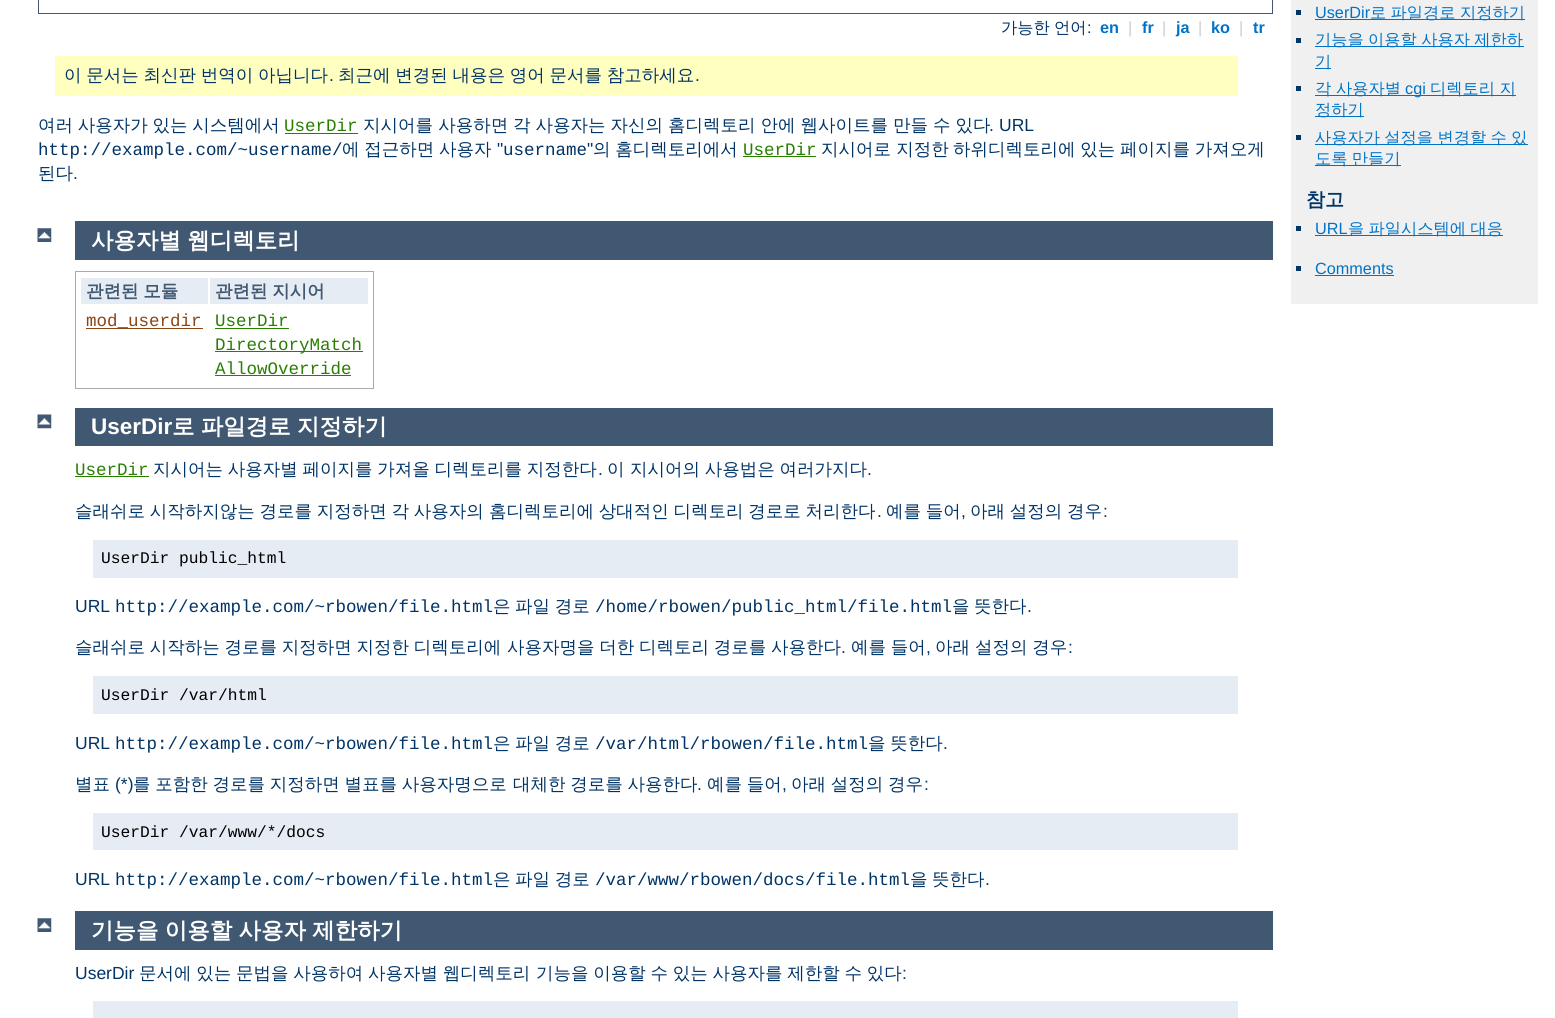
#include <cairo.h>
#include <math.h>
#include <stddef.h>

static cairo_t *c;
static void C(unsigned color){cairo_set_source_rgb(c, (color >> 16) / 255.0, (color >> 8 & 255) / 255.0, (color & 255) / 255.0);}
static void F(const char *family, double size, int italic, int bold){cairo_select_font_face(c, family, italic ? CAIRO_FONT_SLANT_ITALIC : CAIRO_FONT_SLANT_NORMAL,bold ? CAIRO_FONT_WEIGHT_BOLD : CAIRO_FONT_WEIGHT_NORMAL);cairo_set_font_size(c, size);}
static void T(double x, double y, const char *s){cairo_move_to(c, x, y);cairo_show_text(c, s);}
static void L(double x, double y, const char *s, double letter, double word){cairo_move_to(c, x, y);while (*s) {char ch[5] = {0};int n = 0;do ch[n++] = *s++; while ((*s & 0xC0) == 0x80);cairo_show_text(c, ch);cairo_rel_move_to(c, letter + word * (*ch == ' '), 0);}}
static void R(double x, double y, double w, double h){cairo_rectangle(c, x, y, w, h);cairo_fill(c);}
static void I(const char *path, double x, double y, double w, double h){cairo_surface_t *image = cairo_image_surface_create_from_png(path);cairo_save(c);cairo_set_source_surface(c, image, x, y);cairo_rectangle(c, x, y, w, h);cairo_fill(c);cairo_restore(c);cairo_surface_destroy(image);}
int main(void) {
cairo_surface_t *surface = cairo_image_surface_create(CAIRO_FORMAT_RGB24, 1555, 1018);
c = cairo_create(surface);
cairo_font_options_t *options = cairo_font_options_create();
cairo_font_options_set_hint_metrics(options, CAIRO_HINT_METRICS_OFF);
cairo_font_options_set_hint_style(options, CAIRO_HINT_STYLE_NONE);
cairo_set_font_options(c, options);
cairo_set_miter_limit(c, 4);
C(0xffffff);
cairo_paint(c);
cairo_rectangle(c,38.5,-.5,1234,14);
C(0x405871);
cairo_set_line_width(c,1);
cairo_stroke(c);
F("WenQuanYi Zen Hei Medium",16.25,0,0);
C(0x003366);
L(1001,33,"가능한 언어",0,-.5);
F("Liberation Sans",16.25,0,0);
T(1087,33,":");
F("Liberation Sans",16.25,0,1);
C(0x0073c7);
T(1100,33,"en");
F("Liberation Sans",16.25,0,0);
C(0xcccccc);
T(1128,33,"|");
F("Liberation Sans",16.25,0,1);
C(0x0073c7);
T(1142,33,"fr");
F("Liberation Sans",16.25,0,0);
C(0xcccccc);
T(1162,33,"|");
F("Liberation Sans",16.25,0,1);
C(0x0073c7);
T(1176,33,"ja");
F("Liberation Sans",16.25,0,0);
C(0xcccccc);
T(1198,33,"|");
F("Liberation Sans",16.25,0,1);
C(0x0073c7);
T(1211,33,"ko");
F("Liberation Sans",16.25,0,0);
C(0xcccccc);
T(1239,33,"|");
F("Liberation Sans",16.25,0,1);
C(0x0073c7);
T(1253,33,"tr");
C(0xffffc0);
R(55,56,1183,40);
F("WenQuanYi Zen Hei Medium",17.5,0,0);
C(0x003366);
L(64,81,"이 문서는 최신판 번역이 아닙니다",0,-.5);
F("Liberation Sans",17.5,0,0);
T(329,81,".");
F("WenQuanYi Zen Hei Medium",17.5,0,0);
L(338,81,"최근에 변경된 내용은 영어 문서를 참고하세요",0,-.5);
F("Liberation Sans",17.5,0,0);
T(695,81,".");
F("WenQuanYi Zen Hei Medium",17.5,0,0);
L(38,131,"여러 사용자가 있는 시스템에서",0,-.5);
F("Liberation Mono",17.5,0,0);
C(0x287f00);
T(284,131,"UserDir");
R(285,133,73,1);
F("WenQuanYi Zen Hei Medium",17.5,0,0);
C(0x003366);
T(363,131,"지시어를 사용하면");
L(513,131,"각 사용자는 자신의 홈디렉토리 안에 웹사이트를 만들 수 있다",0,-.25);
F("Liberation Sans",17.5,0,0);
T(989,131,".");
T(999,131,"URL");
F("Liberation Mono",17.5,0,0);
T(38,155,"http://example.com/~username/");
F("WenQuanYi Zen Hei Medium",17.5,0,0);
L(342,155,"에 접근하면",0,-.5);
T(439,155,"사용자");
F("Liberation Sans",17.5,0,0);
T(497,155,"\"");
F("Liberation Mono",17.5,0,0);
T(503,155,"username");
F("Liberation Sans",17.5,0,0);
T(587,155,"\"");
F("WenQuanYi Zen Hei Medium",17.5,0,0);
L(593,155,"의 홈디렉토리에서",0,-.5);
F("Liberation Mono",17.5,0,0);
C(0x287f00);
T(743,155,"UserDir");
R(743,156,73,1);
F("WenQuanYi Zen Hei Medium",17.5,0,0);
C(0x003366);
T(821,155,"지시어로 지정한");
L(953,155,"하위디렉토리에 있는 페이지를 가져오게",0,-.5);
T(38,179,"된다");
F("Liberation Sans",17.5,0,0);
T(73,179,".");
C(0xf0f0f0);
R(1291,0,247,304);
C(0x003366);
R(1296,10,5,5);
F("Liberation Sans",16.25,0,0);
C(0x0073c7);
T(1315,18,"UserDir");
R(1315,19,210,1);
F("WenQuanYi Zen Hei Medium",16.25,0,0);
L(1370,18,"로 파일경로 지정하기",0,-.5);
C(0x003366);
R(1296,38,5,5);
C(0x0073c7);
R(1315,46,209,1);
L(1315,45,"기능을 이용할 사용자 제한하",0,-.5);
R(1315,68,16,1);
T(1315,67,"기");
C(0x003366);
R(1296,86,5,5);
C(0x0073c7);
R(1315,95,201,1);
T(1315,94,"각 사용자별");
F("Liberation Sans",16.25,0,0);
T(1405,94,"cgi");
F("WenQuanYi Zen Hei Medium",16.25,0,0);
T(1430,94,"디렉토리 지");
R(1315,116,49,1);
T(1315,115,"정하기");
C(0x003366);
R(1296,135,5,5);
C(0x0073c7);
R(1315,144,213,1);
L(1315,143,"사용자가 설정을 변경할 수 있",0,-.5);
R(1315,165,86,1);
L(1315,164,"도록 만들기",0,-.5);
F("WenQuanYi Zen Hei",19,0,1);
C(0x003366);
T(1306,206,"참고");
R(1296,226,5,5);
F("Liberation Sans",16.25,0,0);
C(0x0073c7);
T(1315,234,"URL");
R(1315,235,188,1);
F("WenQuanYi Zen Hei Medium",16.25,0,0);
L(1348,234,"을 파일시스템에 대응",0,-.5);
C(0x003366);
R(1296,266,5,5);
F("Liberation Sans",16.25,0,0);
C(0x0073c7);
T(1315,274,"Comments");
R(1315,275,79,1);
I("1.png",37,228,15,14);
C(0x405871);
R(75,221,1198,39);
F("WenQuanYi Zen Hei",22.5,0,1);
C(0xffffff);
L(91,248,"사용자별 웹디렉토리",0,-.5);
cairo_rectangle(c,75.5,271.5,298,117);
C(0xaaaaaa);
cairo_stroke(c);
C(0xe5ecf3);
R(81,278,127,26);
F("WenQuanYi Zen Hei",17.5,0,1);
C(0x405871);
L(86,297,"관련된 모듈",0,-.5);
C(0xe5ecf3);
R(210,278,158,26);
C(0x405871);
L(215,297,"관련된 지시어",0,-.5);
F("Liberation Mono",17.5,0,0);
C(0x8b4513);
T(86,326,"mod_userdir");
R(86,328,117,1);
C(0x287f00);
T(215,326,"UserDir");
R(215,328,74,1);
R(215,351,148,1);
T(215,350,"DirectoryMatch");
T(215,374,"AllowOverride");
R(215,375,136,1);
I("2.png",37,414,15,15);
C(0x405871);
R(75,408,1198,38);
F("Liberation Sans",22.5,0,1);
C(0xffffff);
T(91,434,"UserDir");
F("WenQuanYi Zen Hei",22.5,0,1);
L(172,434,"로 파일경로 지정하기",0,-.5);
F("Liberation Mono",17.5,0,0);
C(0x287f00);
T(75,475,"UserDir");
R(75,476,74,1);
F("WenQuanYi Zen Hei Medium",17.5,0,0);
C(0x003366);
L(153,475,"지시어는 사용자별 페이지를 가져올 디렉토리를 지정한다",0,-.5);
F("Liberation Sans",17.5,0,0);
T(598,475,".");
F("WenQuanYi Zen Hei Medium",17.5,0,0);
T(607,475,"이");
L(630,475,"지시어의 사용법은 여러가지다",0,-.5);
F("Liberation Sans",17.5,0,0);
T(867,475,".");
F("WenQuanYi Zen Hei Medium",17.5,0,0);
L(75,517,"슬래쉬로 시작하지않는 경로를 지정하면 각 사용자의",0,-.5);
L(489,517,"홈디렉토리에 상대적인 디렉토리 경로로 처리한다",0,-.5);
F("Liberation Sans",17.5,0,0);
T(877,517,".");
F("WenQuanYi Zen Hei Medium",17.5,0,0);
L(886,517,"예를 들어",0,-.5);
F("Liberation Sans",17.5,0,0);
T(961,517,",");
F("WenQuanYi Zen Hei Medium",17.5,0,0);
L(970,517,"아래 설정의 경우",0,-.5);
F("Liberation Sans",17.5,0,0);
T(1103,517,":");
C(0xe5ecf3);
R(93,540,1145,38);
F("Liberation Mono",16.25,0,0);
C(0x000000);
T(101,563,"UserDir public_html");
F("Liberation Sans",17.5,0,0);
C(0x003366);
T(75,612,"URL");
F("Liberation Mono",17.5,0,0);
T(115,612,"http://example.com/~rbowen/file.html");
F("WenQuanYi Zen Hei Medium",17.5,0,0);
T(493,612,"은");
L(515,612,"파일 경로",0,-.5);
F("Liberation Mono",17.5,0,0);
T(595,612,"/home/rbowen/public_html/file.html");
F("WenQuanYi Zen Hei Medium",17.5,0,0);
T(952,612,"을");
T(974,612,"뜻한다");
F("Liberation Sans",17.5,0,0);
T(1027,612,".");
F("WenQuanYi Zen Hei Medium",17.5,0,0);
L(75,653,"슬래쉬로 시작하는 경로를 지정하면 지정한 디렉토리에",0,-.5);
L(507,653,"사용자명을 더한 디렉토리 경로를 사용한다",0,-.5);
F("Liberation Sans",17.5,0,0);
T(841,653,".");
F("WenQuanYi Zen Hei Medium",17.5,0,0);
L(851,653,"예를 들어",0,-.5);
F("Liberation Sans",17.5,0,0);
T(926,653,",");
F("WenQuanYi Zen Hei Medium",17.5,0,0);
T(935,653,"아래");
L(975,653,"설정의 경우",0,-.5);
F("Liberation Sans",17.5,0,0);
T(1068,653,":");
C(0xe5ecf3);
R(93,676,1145,38);
F("Liberation Mono",16.25,0,0);
C(0x000000);
T(101,700,"UserDir /var/html");
F("Liberation Sans",17.5,0,0);
C(0x003366);
T(75,749,"URL");
F("Liberation Mono",17.5,0,0);
T(115,749,"http://example.com/~rbowen/file.html");
F("WenQuanYi Zen Hei Medium",17.5,0,0);
T(493,749,"은");
L(515,749,"파일 경로",0,-.5);
F("Liberation Mono",17.5,0,0);
T(595,749,"/var/html/rbowen/file.html");
F("WenQuanYi Zen Hei Medium",17.5,0,0);
L(868,749,"을 뜻한다",0,-.5);
F("Liberation Sans",17.5,0,0);
T(943,749,".");
F("WenQuanYi Zen Hei Medium",17.5,0,0);
T(75,790,"별표");
F("Liberation Sans",17.5,0,0);
T(115,790,"(*)");
F("WenQuanYi Zen Hei Medium",17.5,0,0);
L(133,790,"를 포함한 경로를 지정하면 별표를 사용자명으로",0,-.5);
L(513,790,"대체한 경로를 사용한다",0,-.5);
F("Liberation Sans",17.5,0,0);
T(697,790,".");
F("WenQuanYi Zen Hei Medium",17.5,0,0);
L(707,790,"예를 들어",0,-.5);
F("Liberation Sans",17.5,0,0);
T(782,790,",");
F("WenQuanYi Zen Hei Medium",17.5,0,0);
L(791,790,"아래 설정의 경우",0,-.5);
F("Liberation Sans",17.5,0,0);
T(924,790,":");
C(0xe5ecf3);
R(93,813,1145,37);
F("Liberation Mono",16.25,0,0);
C(0x000000);
T(101,837,"UserDir /var/www/*/docs");
F("Liberation Sans",17.5,0,0);
C(0x003366);
T(75,885,"URL");
F("Liberation Mono",17.5,0,0);
T(115,885,"http://example.com/~rbowen/file.html");
F("WenQuanYi Zen Hei Medium",17.5,0,0);
T(493,885,"은");
L(515,885,"파일 경로",0,-.5);
F("Liberation Mono",17.5,0,0);
T(595,885,"/var/www/rbowen/docs/file.html");
F("WenQuanYi Zen Hei Medium",17.5,0,0);
T(910,885,"을");
T(932,885,"뜻한다");
F("Liberation Sans",17.5,0,0);
T(985,885,".");
I("1.png",37,918,15,14);
C(0x405871);
R(75,911,1198,39);
F("WenQuanYi Zen Hei",22.5,0,1);
C(0xffffff);
L(91,938,"기능을 이용할 사용자 제한하기",0,-.5);
F("Liberation Sans",17.5,0,0);
C(0x003366);
T(75,979,"UserDir");
F("WenQuanYi Zen Hei Medium",17.5,0,0);
L(139,979,"문서에 있는 문법을 사용하여 사용자별 웹디렉토리",0,-.5);
L(536,979,"기능을 이용할 수 있는 사용자를 제한할 수 있다",0,-.5);
F("Liberation Sans",17.5,0,0);
T(902,979,":");
C(0xe5ecf3);
R(93,1001,1145,17);
cairo_surface_write_to_png(surface, "o.png");
cairo_font_options_destroy(options);
cairo_destroy(c);
cairo_surface_destroy(surface);
return 0;
}
